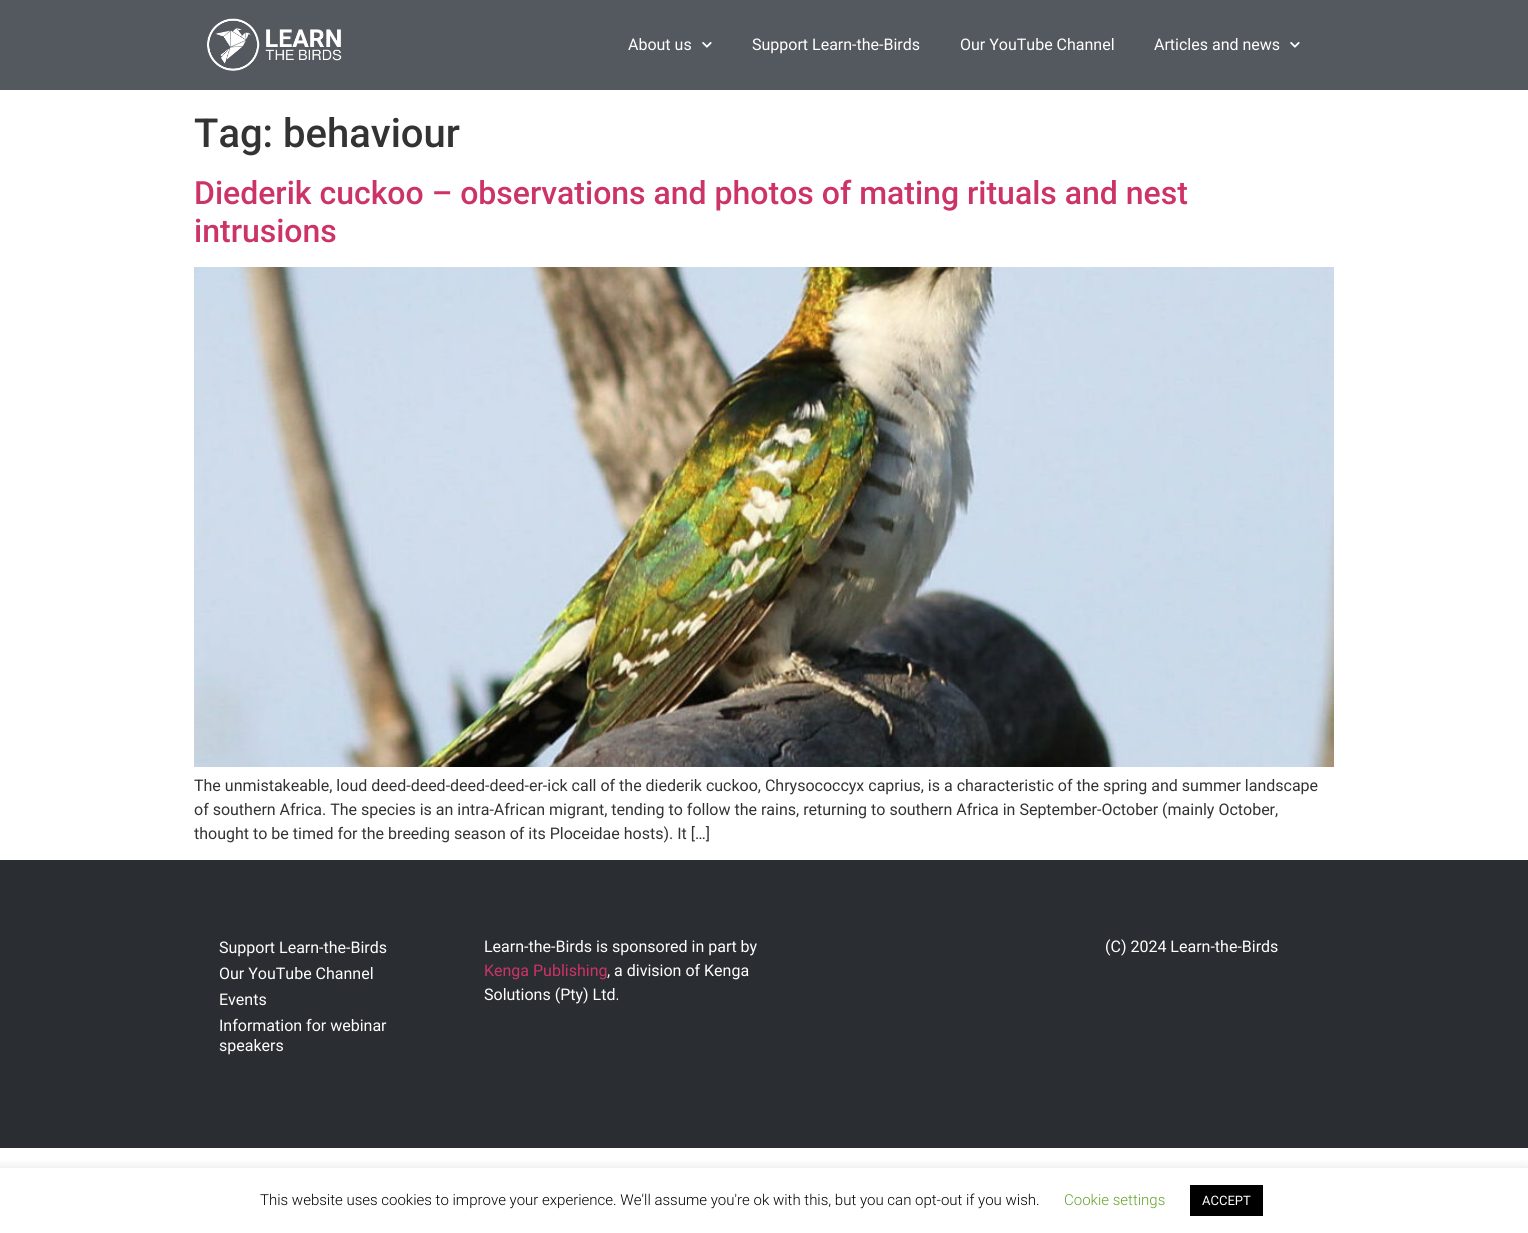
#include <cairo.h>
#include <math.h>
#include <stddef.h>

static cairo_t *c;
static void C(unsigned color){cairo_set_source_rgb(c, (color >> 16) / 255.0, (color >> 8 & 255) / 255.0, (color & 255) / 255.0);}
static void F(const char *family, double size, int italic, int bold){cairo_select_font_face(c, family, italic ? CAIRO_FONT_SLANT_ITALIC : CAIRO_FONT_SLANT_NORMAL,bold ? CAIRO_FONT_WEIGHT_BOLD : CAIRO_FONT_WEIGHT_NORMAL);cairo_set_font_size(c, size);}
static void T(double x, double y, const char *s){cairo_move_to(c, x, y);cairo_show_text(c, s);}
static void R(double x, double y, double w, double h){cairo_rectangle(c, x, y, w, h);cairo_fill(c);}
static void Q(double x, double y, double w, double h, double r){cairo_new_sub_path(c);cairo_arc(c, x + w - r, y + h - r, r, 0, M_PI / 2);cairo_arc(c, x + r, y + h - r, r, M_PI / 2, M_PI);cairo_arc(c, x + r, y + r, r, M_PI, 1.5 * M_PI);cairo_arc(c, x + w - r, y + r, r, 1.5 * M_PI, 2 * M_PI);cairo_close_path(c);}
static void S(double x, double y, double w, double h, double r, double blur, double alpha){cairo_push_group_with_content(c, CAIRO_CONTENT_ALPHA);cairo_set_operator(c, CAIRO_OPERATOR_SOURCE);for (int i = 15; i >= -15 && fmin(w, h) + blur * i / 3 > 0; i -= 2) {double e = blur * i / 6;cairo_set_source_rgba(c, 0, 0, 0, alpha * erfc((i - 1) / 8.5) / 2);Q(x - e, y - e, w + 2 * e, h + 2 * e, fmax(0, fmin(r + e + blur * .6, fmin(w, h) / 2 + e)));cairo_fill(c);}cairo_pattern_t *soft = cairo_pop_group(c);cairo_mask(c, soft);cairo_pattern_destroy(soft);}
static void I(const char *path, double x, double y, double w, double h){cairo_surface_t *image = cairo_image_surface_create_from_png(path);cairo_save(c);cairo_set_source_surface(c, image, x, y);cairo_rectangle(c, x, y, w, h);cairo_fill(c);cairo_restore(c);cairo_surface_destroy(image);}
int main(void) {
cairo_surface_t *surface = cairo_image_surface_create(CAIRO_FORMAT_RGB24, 1528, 1233);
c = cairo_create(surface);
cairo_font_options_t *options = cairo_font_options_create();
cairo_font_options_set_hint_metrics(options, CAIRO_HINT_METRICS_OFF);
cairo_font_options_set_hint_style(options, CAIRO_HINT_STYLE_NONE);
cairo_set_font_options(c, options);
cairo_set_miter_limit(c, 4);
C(0xffffff);
cairo_paint(c);
C(0x54595f);
R(0,0,1528,90);
I("1.png",207,18,135,53);
F("Roboto",16,0,0);
C(0xffffff);
T(628,50,"About us");
I("2.png",702,42,10,6);
T(752,50,"Support Learn-the-Birds");
T(960,50,"Our YouTube Channel");
T(1154,50,"Articles and news");
I("2.png",1290,42,10,6);
F("Roboto Medium",40,0,0);
C(0x333333);
T(194,147,"Tag: behaviour");
F("Roboto Medium",32,0,0);
C(0xcc3366);
T(194,204,"Diederik cuckoo – observations and photos of mating rituals and nest");
T(194,242,"intrusions");
I("3.png",194,267,1140,500);
F("Roboto",16,0,0);
C(0x333333);
T(194,791,"The unmistakeable, loud deed-deed-deed-deed-er-ick call of the diederik cuckoo, Chrysococcyx caprius, is a characteristic of the spring and summer landscape");
T(194,815,"of southern Africa. The species is an intra-African migrant, tending to follow the rains, returning to southern Africa in September-October (mainly October,");
T(194,839,"thought to be timed for the breeding season of its Ploceidae hosts). It […]");
C(0x2a2d31);
R(0,860,1528,288);
C(0xffffff);
T(219,953,"Support Learn-the-Birds");
T(219,979,"Our YouTube Channel");
T(219,1005,"Events");
T(219,1031,"Information for webinar");
T(219,1051,"speakers");
T(484,952,"Learn-the-Birds is sponsored in part by");
C(0xcc3366);
T(484,976,"Kenga Publishing");
C(0xffffff);
T(607,976,", a division of Kenga");
T(484,1000,"Solutions (Pty) Ltd.");
T(1105,952,"(C) 2024 Learn-the-Birds");
cairo_save(c);
cairo_rectangle(c,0,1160,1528,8);
cairo_clip(c);
C(0xacabab);
S(0,1167,1528,65,0,5,.3);
cairo_restore(c);
F("Roboto Light",15,0,0);
C(0x000000);
T(260,1205,"This website uses cookies to improve your experience. We'll assume you're ok with this, but you can opt-out if you wish.");
C(0x62a329);
T(1064,1205,"Cookie settings");
C(0x000000);
R(1190,1185,73,31);
F("Roboto",13,0,0);
C(0xffffff);
T(1202,1205,"ACCEPT");
cairo_surface_write_to_png(surface, "o.png");
cairo_font_options_destroy(options);
cairo_destroy(c);
cairo_surface_destroy(surface);
return 0;
}
